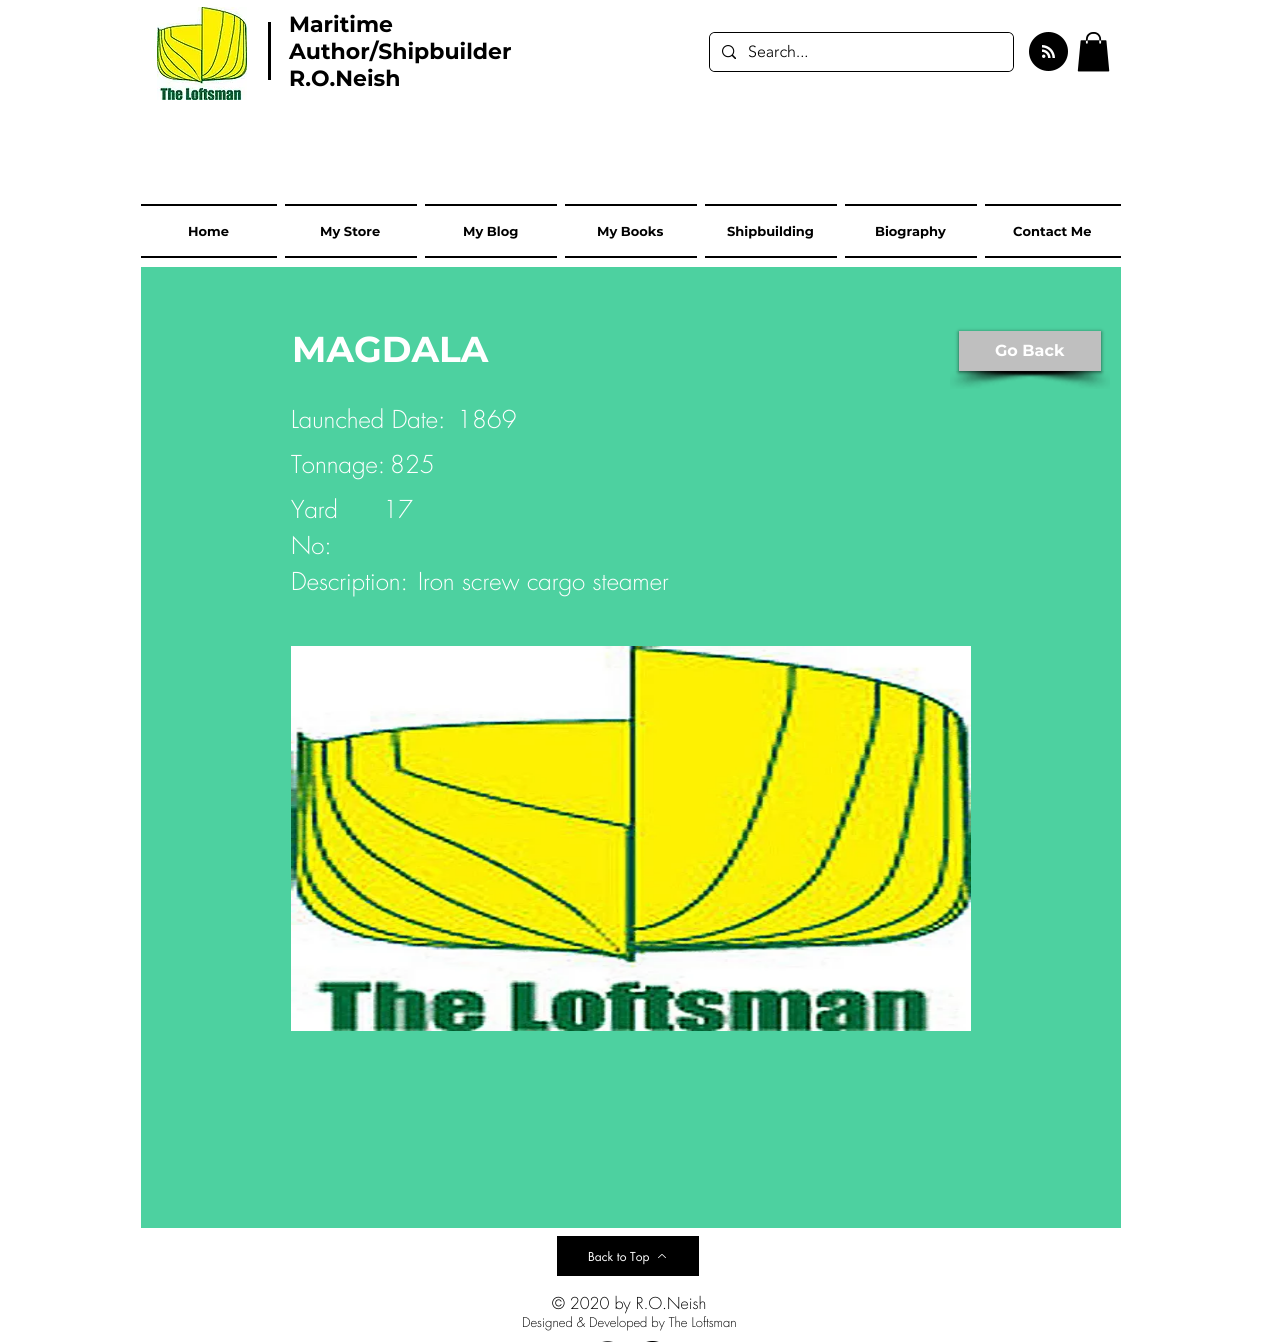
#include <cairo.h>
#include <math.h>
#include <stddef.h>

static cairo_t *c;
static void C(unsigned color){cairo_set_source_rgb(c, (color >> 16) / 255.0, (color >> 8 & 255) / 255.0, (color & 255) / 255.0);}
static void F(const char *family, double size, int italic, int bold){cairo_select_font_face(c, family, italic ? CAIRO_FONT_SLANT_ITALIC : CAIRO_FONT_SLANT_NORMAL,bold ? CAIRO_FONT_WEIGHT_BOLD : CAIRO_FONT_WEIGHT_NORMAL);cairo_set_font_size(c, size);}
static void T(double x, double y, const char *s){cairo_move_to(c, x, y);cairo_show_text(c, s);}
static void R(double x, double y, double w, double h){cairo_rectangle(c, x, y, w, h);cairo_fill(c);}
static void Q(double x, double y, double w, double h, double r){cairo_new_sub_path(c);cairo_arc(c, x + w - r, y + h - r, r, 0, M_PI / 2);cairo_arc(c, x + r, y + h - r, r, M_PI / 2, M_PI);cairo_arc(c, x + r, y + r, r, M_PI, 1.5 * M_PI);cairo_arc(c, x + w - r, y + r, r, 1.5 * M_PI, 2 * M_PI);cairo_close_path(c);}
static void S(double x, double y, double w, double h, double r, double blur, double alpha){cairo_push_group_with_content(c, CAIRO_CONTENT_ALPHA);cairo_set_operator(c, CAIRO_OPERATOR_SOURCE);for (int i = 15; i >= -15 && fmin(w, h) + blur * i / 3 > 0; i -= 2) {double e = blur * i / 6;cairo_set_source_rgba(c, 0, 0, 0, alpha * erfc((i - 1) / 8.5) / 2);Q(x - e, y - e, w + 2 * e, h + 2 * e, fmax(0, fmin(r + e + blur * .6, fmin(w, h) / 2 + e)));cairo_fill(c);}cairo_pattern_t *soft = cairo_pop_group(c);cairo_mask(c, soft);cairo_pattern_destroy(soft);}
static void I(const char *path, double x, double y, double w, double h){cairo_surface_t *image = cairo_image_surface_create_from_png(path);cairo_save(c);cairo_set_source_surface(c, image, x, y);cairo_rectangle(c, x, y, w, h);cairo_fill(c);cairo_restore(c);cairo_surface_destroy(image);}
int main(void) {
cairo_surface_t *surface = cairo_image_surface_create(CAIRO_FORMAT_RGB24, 1261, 1342);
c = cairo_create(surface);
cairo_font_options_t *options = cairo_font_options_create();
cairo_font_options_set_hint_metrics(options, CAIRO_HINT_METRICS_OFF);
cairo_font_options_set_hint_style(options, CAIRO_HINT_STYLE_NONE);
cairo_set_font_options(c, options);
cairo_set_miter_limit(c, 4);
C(0xffffff);
cairo_paint(c);
I("1.png",157,7,90,93);
C(0x000000);
R(268,22,3,58);
F("Montserrat",22,0,1);
T(289,32,"Maritime");
T(289,59,"Author/Shipbuilder");
T(289,86,"R.O.Neish");
Q(709.5,32.5,304,39,5.5);
cairo_set_line_width(c,1);
cairo_stroke(c);
C(0xffffff);
Q(710,33,303,38,5);
cairo_fill(c);
I("2.png",722,45,14,14);
F("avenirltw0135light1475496 Light",16,0,0);
C(0x000000);
T(748,57,"Search...");
I("3.png",1029,32,39,39);
I("4.png",1077,32,33,40);
R(141,204,136,2);
R(141,256,136,2);
F("Montserrat",13,0,1);
T(188,236,"Home");
R(285,204,132,2);
R(285,256,132,2);
T(320,236,"My Store");
R(425,204,132,2);
R(425,256,132,2);
T(463,236,"My Blog");
R(565,204,132,2);
R(565,256,132,2);
T(597,236,"My Books");
R(705,204,132,2);
R(705,256,132,2);
T(727,236,"Shipbuilding");
R(845,204,132,2);
R(845,256,132,2);
T(875,236,"Biography");
R(985,204,136,2);
R(985,256,136,2);
T(1013,236,"Contact Me");
C(0x4dd1a0);
R(141,267,980,961);
F("Montserrat",36,0,1);
C(0xffffff);
T(292,362,"MAGDALA");
I("5.png",950,371,154,18);
I("6.png",956,371,154,18);
C(0x000000);
S(959,332,142,40,0,2,.6);
C(0xbfbfbf);
R(959,331,142,40);
F("Montserrat",16,0,1);
C(0xffffff);
T(995,356,"Go Back");
F("futura Light",24,0,0);
T(291,428,"Launched Date:");
T(457,428,"1869");
T(291,473,"Tonnage:");
T(390,473,"825");
T(291,518,"Yard");
T(291,554,"No:");
T(383,518,"17");
T(291,590,"Description:");
T(418,590,"Iron screw cargo steamer");
I("7.png",291,646,680,385);
C(0x000000);
R(557,1236,142,40);
F("futura",12,0,0);
C(0xffffff);
T(588,1261,"Back to Top");
I("8.png",658,1254,8,5);
F("futura Light",16,0,0);
C(0x000000);
T(552,1309,"© 2020 by R.O.Neish");
F("futura Light",13,0,0);
T(522,1327,"Designed & Developed by The Loftsman");
I("9.png",602,1341,11,1);
I("10.png",646,1341,13,1);
cairo_surface_write_to_png(surface, "o.png");
cairo_font_options_destroy(options);
cairo_destroy(c);
cairo_surface_destroy(surface);
return 0;
}
